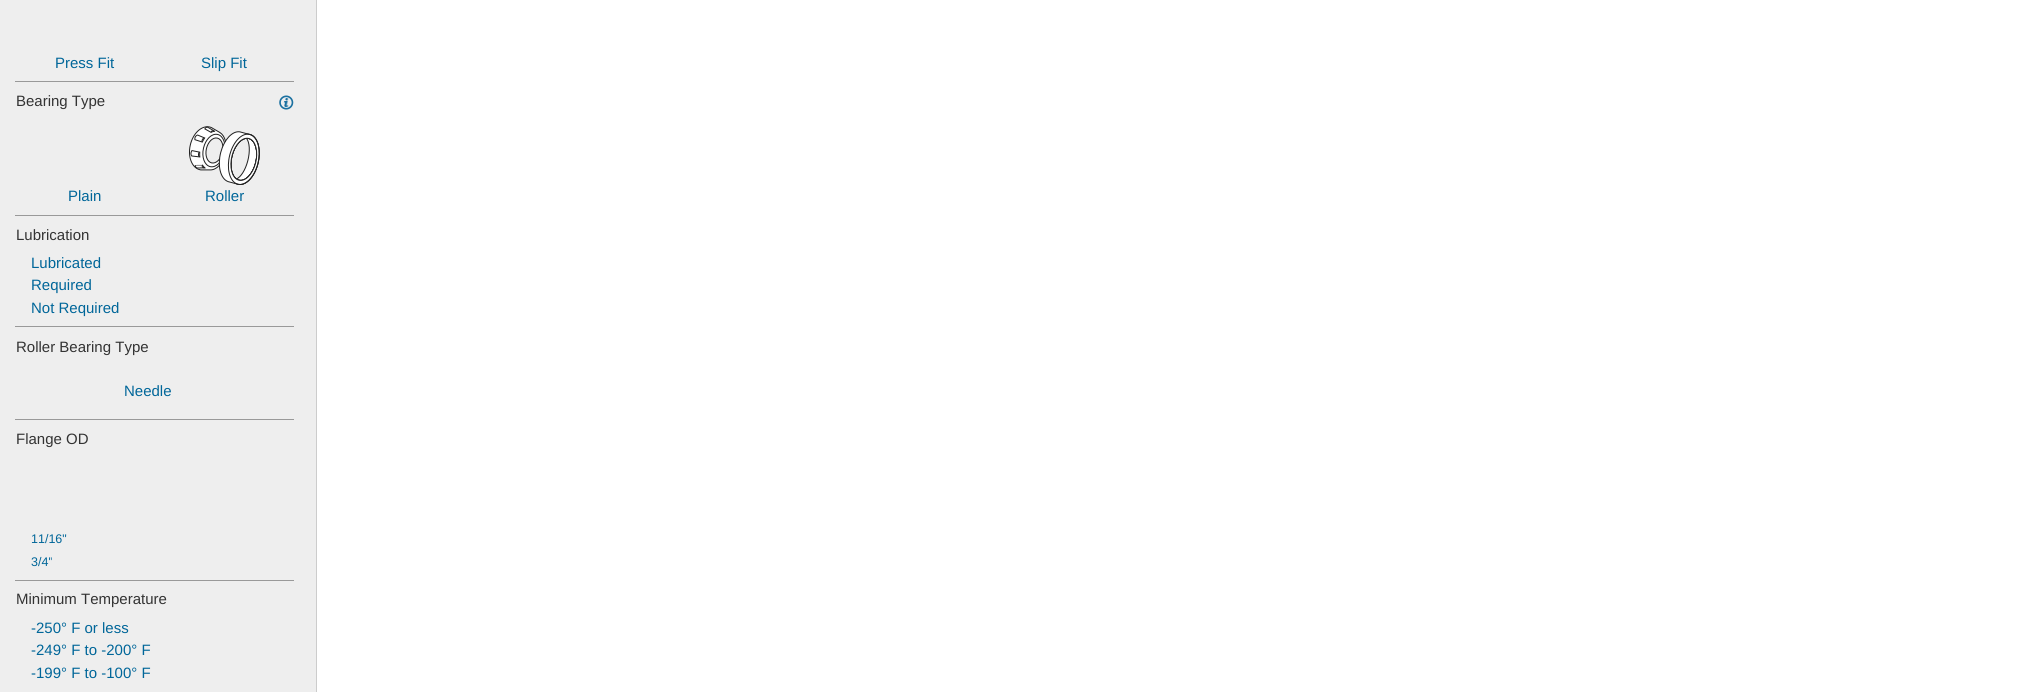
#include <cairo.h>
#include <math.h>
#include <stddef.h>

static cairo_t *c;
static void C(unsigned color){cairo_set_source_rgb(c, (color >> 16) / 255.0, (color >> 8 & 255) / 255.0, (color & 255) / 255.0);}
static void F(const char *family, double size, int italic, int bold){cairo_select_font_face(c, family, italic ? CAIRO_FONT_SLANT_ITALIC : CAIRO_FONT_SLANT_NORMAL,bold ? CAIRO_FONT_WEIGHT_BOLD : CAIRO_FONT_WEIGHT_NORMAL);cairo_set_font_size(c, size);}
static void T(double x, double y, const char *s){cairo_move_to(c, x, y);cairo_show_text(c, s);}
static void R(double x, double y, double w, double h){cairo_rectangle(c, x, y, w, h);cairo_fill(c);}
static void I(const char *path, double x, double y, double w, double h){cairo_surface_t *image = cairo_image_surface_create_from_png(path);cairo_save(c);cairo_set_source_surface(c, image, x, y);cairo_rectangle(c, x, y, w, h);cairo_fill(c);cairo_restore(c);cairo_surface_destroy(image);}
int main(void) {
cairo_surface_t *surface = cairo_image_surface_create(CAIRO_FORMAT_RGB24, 2037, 692);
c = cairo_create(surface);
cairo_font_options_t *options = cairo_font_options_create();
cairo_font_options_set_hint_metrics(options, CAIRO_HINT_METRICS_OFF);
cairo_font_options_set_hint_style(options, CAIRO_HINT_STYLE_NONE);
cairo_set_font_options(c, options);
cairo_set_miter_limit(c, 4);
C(0xffffff);
cairo_paint(c);
C(0xeeeeee);
R(0,0,316,692);
C(0xcccccc);
R(316,0,1,692);
F("Liberation Sans",15,0,0);
C(0x006699);
T(55,68,"Press Fit");
T(201,68,"Slip Fit");
C(0x999999);
R(15,81,279,1);
C(0x333333);
T(16,106,"Bearing Type");
I("1.png",279,95,15,15);
C(0x006699);
T(68,201,"Plain");
I("2.png",189,126,71,59);
T(205,201,"Roller");
C(0x999999);
R(15,215,279,1);
C(0x333333);
T(16,240,"Lubrication");
C(0x006699);
T(31,268,"Lubricated");
T(31,290,"Required");
T(31,313,"Not Required");
C(0x999999);
R(15,326,279,1);
C(0x333333);
T(16,352,"Roller Bearing Type");
C(0x006699);
T(124,396,"Needle");
C(0x999999);
R(15,419,279,1);
C(0x333333);
T(16,444,"Flange OD");
F("Liberation Sans",12.5,0,0);
C(0x006699);
T(31,543,"11/16\"");
T(31,566,"3/4\"");
C(0x999999);
R(15,580,279,1);
F("Liberation Sans",15,0,0);
C(0x333333);
T(16,604,"Minimum Temperature");
C(0x006699);
T(31,633,"-250° F or less");
T(31,655,"-249° F to -200° F");
T(31,678,"-199° F to -100° F");
cairo_surface_write_to_png(surface, "o.png");
cairo_font_options_destroy(options);
cairo_destroy(c);
cairo_surface_destroy(surface);
return 0;
}
